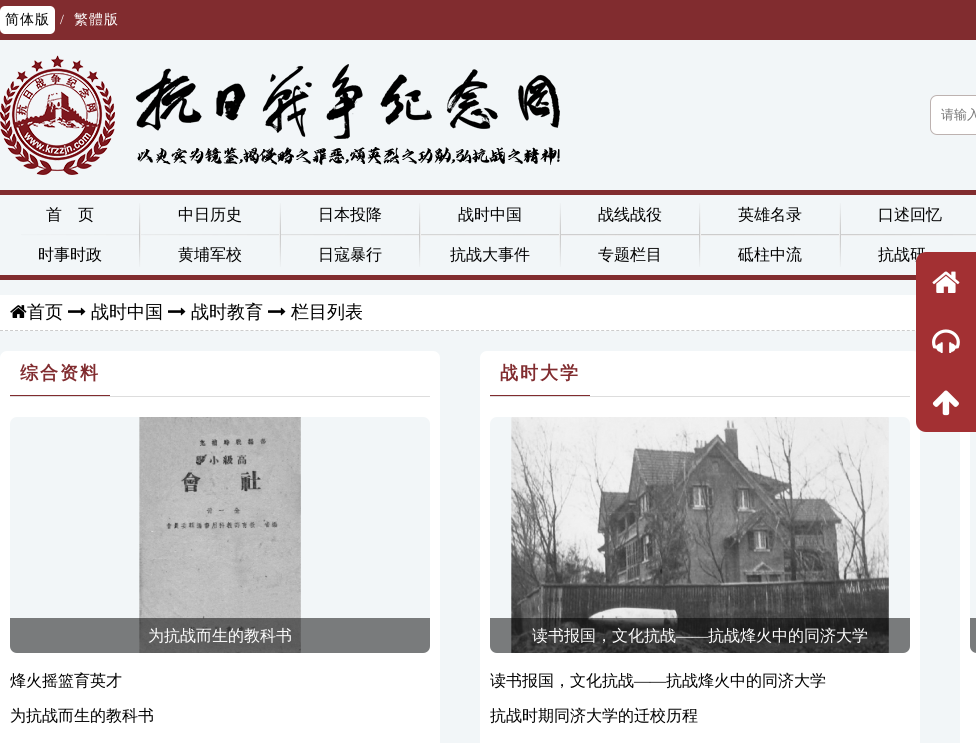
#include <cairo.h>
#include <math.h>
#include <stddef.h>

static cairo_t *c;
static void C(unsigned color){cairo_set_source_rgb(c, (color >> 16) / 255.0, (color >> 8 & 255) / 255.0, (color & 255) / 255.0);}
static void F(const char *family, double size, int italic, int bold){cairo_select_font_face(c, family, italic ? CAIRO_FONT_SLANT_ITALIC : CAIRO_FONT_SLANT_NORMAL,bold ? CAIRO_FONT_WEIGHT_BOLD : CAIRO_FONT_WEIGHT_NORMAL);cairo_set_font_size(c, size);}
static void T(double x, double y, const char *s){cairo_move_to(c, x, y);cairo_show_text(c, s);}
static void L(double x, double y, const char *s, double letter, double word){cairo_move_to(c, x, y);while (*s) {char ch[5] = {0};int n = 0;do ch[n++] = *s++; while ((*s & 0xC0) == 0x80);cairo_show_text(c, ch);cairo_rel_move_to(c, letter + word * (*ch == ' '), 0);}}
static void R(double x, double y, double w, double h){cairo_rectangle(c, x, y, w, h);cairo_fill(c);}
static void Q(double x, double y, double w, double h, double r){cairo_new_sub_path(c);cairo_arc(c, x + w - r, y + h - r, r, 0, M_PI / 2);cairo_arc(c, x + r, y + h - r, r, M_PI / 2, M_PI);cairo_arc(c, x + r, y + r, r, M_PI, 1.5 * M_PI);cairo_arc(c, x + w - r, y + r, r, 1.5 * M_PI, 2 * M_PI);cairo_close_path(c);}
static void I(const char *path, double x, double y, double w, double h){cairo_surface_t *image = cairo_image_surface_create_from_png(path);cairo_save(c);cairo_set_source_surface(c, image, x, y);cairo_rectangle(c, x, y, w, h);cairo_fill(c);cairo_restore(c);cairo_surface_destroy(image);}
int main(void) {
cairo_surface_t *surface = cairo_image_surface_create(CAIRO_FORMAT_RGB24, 976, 743);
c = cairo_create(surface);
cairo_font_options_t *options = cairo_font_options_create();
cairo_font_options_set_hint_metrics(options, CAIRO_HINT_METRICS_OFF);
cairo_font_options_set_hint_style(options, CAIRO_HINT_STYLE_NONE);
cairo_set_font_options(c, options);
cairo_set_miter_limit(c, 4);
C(0xf2f6f8);
cairo_paint(c);
C(0x812c2f);
R(0,0,976,40);
C(0xffffff);
Q(0,6,55,28,5);
cairo_fill(c);
F("WenQuanYi Zen Hei Medium",14,0,0);
C(0x000000);
L(5,24,"简体版",1,0);
F("Liberation Serif",14,0,0);
C(0xffffff);
L(60,24,"/",1,0);
F("WenQuanYi Zen Hei Medium",14,0,0);
L(74,24,"繁體版",1,0);
I("1.png",0,55,560,120);
Q(930.5,95.5,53,39,6.5);
cairo_fill_preserve(c);
C(0xbdb2b0);
cairo_set_line_width(c,1);
cairo_stroke(c);
F("WenQuanYi Zen Hei Medium",13,0,0);
C(0x757575);
T(941,119,"请输入");
I("2.png",21,203,955,64);
C(0x812c2f);
R(0,190,976,5);
R(0,275,916,5);
F("WenQuanYi Zen Hei Medium",16,0,0);
C(0x000000);
T(46,220,"首　页");
T(178,220,"中日历史");
T(318,220,"日本投降");
T(458,220,"战时中国");
T(598,220,"战线战役");
T(738,220,"英雄名录");
T(878,220,"口述回忆");
T(38,260,"时事时政");
T(178,260,"黄埔军校");
T(318,260,"日寇暴行");
T(450,260,"抗战大事件");
T(598,260,"专题栏目");
T(738,260,"砥柱中流");
T(878,260,"抗战研");
C(0xffffff);
R(0,295,916,36);
cairo_new_path(c);
cairo_move_to(c,0,330.5);
cairo_line_to(c,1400,330.5);
C(0xcccccc);
cairo_set_dash(c,(double[]){3,2.01},2,0);
cairo_stroke(c);
I("3.png",10,305,17,13);
F("WenQuanYi Zen Hei Medium",18,0,0);
C(0x000000);
T(27,318,"首页");
I("4.png",68,307,18,9);
T(91,318,"战时中国");
I("4.png",168,307,18,9);
T(191,318,"战时教育");
I("4.png",268,307,18,9);
T(291,318,"栏目列表");
C(0xffffff);
Q(480,351,440,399,7);
cairo_fill(c);
R(960,432,16,311);
C(0xf2f6f8);
Q(970,417,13,236,7);
cairo_fill(c);
C(0xa33033);
cairo_new_path(c);
cairo_move_to(c,926,252);
cairo_line_to(c,976,252);
cairo_line_to(c,976,432);
cairo_line_to(c,926,432);
cairo_curve_to(c,920.5,432,916,427.5,916,422);
cairo_line_to(c,916,262);
cairo_curve_to(c,916,256.5,920.5,252,926,252);
cairo_close_path(c);
cairo_fill(c);
I("5.png",932,271,28,22);
I("6.png",932,329,28,24);
I("7.png",932,390,27,26);
cairo_save(c);
Q(0,351,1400,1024,6);
cairo_clip(c);
C(0xffffff);
Q(0,351,440,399,7);
cairo_fill(c);
cairo_restore(c);
C(0xdddddd);
R(10,396,420,1);
C(0x812c2f);
R(10,395,100,1);
F("WenQuanYi Zen Hei",18,0,1);
L(20,379,"综合资料",2,0);
C(0xf2f6f8);
Q(10,417,420,236,7);
cairo_fill(c);
I("8.png",139,417,162,236);
I("9.png",139,417,162,236);
cairo_set_source_rgba(c,0,0,0,0.5);
cairo_new_path(c);
cairo_move_to(c,10,618);
cairo_line_to(c,430,618);
cairo_line_to(c,430,646);
cairo_curve_to(c,430,650,427,653,423,653);
cairo_line_to(c,17,653);
cairo_curve_to(c,13,653,10,650,10,646);
cairo_close_path(c);
cairo_fill(c);
F("WenQuanYi Zen Hei Medium",16,0,0);
C(0xffffff);
T(148,641,"为抗战而生的教科书");
C(0x000000);
T(10,686,"烽火摇篮育英才");
T(10,721,"为抗战而生的教科书");
C(0xdddddd);
R(490,396,420,1);
C(0x812c2f);
R(490,395,100,1);
F("WenQuanYi Zen Hei",18,0,1);
L(500,379,"战时大学",2,0);
C(0xf2f6f8);
Q(490,417,420,236,7);
cairo_fill(c);
I("10.png",511,417,378,236);
I("11.png",511,418,378,235);
cairo_set_source_rgba(c,0,0,0,0.5);
cairo_new_path(c);
cairo_move_to(c,490,618);
cairo_line_to(c,910,618);
cairo_line_to(c,910,646);
cairo_curve_to(c,910,650,907,653,903,653);
cairo_line_to(c,497,653);
cairo_curve_to(c,493,653,490,650,490,646);
cairo_close_path(c);
cairo_fill(c);
F("WenQuanYi Zen Hei Medium",16,0,0);
C(0xffffff);
T(532,641,"读书报国，文化抗战");
F("Liberation Serif",16,0,0);
T(676,641,"——");
F("WenQuanYi Zen Hei Medium",16,0,0);
T(708,641,"抗战烽火中的同济大学");
C(0x000000);
T(490,686,"读书报国，文化抗战");
F("Liberation Serif",16,0,0);
T(634,686,"——");
F("WenQuanYi Zen Hei Medium",16,0,0);
T(666,686,"抗战烽火中的同济大学");
T(490,721,"抗战时期同济大学的迁校历程");
cairo_set_source_rgba(c,0,0,0,0.5);
cairo_new_path(c);
cairo_move_to(c,970,618);
cairo_line_to(c,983,618);
cairo_line_to(c,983,646);
cairo_curve_to(c,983,650,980,653,976,653);
cairo_line_to(c,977,653);
cairo_curve_to(c,973,653,970,650,970,646);
cairo_close_path(c);
cairo_fill(c);
cairo_surface_write_to_png(surface, "o.png");
cairo_font_options_destroy(options);
cairo_destroy(c);
cairo_surface_destroy(surface);
return 0;
}
